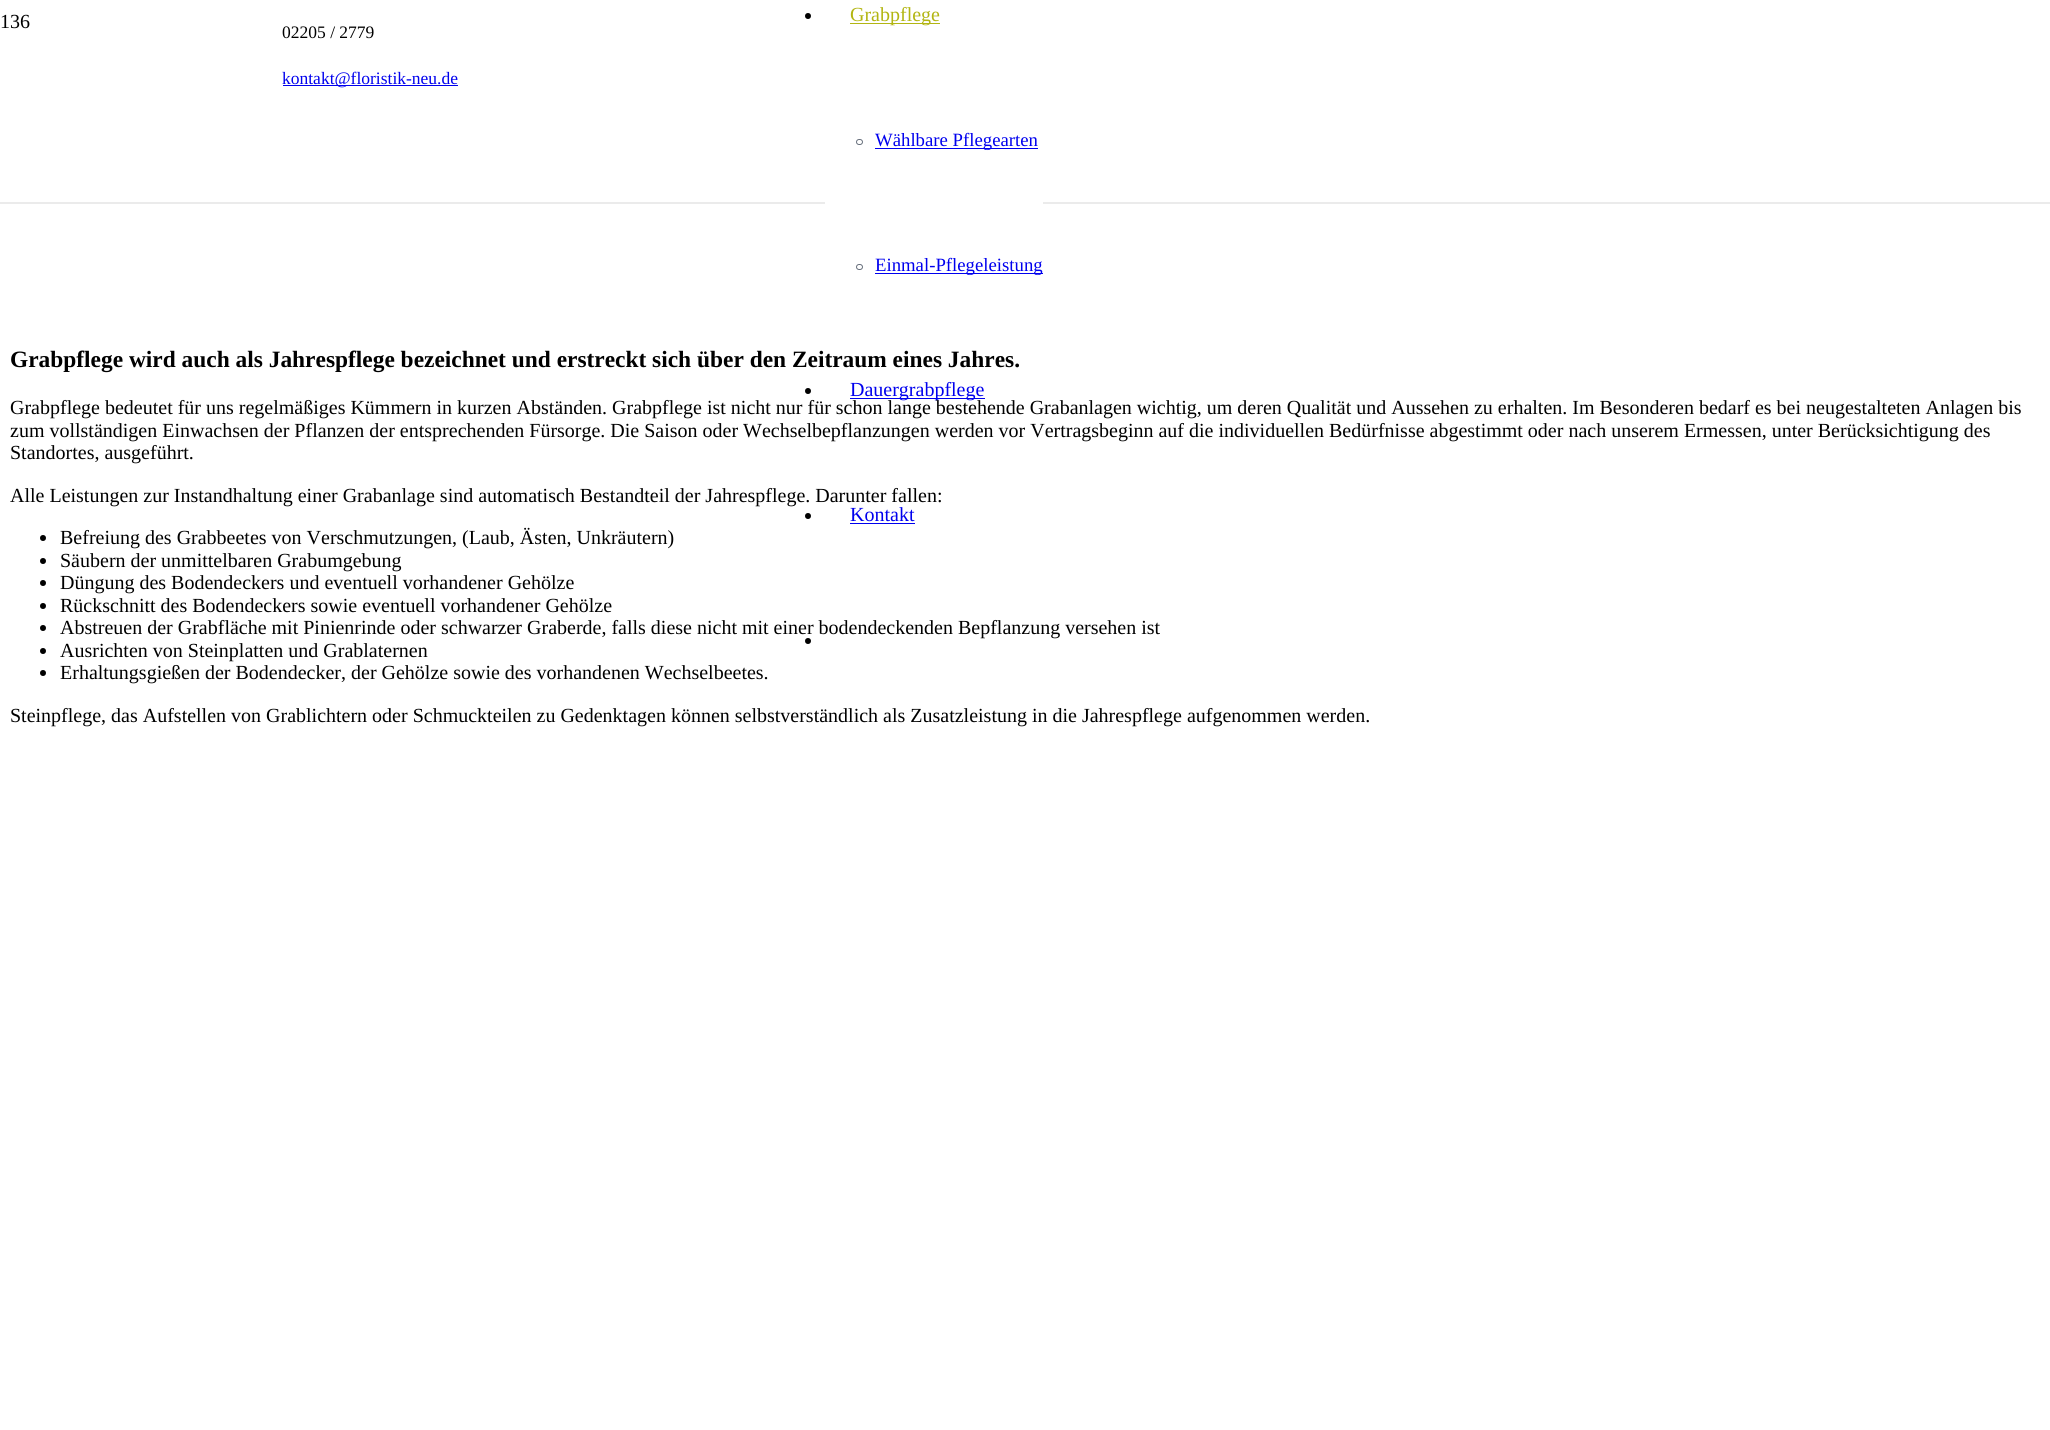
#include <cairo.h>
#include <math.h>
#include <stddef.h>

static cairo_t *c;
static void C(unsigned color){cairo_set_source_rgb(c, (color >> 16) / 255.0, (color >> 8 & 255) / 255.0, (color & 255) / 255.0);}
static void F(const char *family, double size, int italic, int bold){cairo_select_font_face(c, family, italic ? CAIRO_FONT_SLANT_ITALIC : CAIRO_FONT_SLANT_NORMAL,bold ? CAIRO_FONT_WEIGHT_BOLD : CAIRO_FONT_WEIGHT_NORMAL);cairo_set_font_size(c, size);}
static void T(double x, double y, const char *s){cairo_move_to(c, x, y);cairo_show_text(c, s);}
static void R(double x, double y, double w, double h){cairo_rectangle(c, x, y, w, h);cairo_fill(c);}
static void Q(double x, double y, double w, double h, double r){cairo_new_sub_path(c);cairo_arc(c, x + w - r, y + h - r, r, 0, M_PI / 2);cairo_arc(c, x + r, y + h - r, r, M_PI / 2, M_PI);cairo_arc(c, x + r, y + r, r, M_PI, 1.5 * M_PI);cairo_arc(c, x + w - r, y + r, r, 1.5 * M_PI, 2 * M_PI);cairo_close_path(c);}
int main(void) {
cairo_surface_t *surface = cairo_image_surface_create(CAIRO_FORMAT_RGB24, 2050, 1430);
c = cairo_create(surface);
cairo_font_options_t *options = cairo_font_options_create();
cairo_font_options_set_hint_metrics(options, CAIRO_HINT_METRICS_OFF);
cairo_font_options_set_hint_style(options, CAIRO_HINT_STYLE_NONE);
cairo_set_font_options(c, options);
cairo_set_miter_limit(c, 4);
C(0xffffff);
cairo_paint(c);
F("Liberation Serif",20,0,0);
C(0x000000);
T(0,28,"136");
C(0xebebeb);
R(0,202,2050,2);
C(0x000000);
cairo_new_path(c);
cairo_arc(c,808,16,3,0,2 * M_PI);
cairo_fill(c);
C(0xb2b512);
R(850,23,90,1);
T(850,21,"Grabpflege");
C(0xffffff);
R(825,202,218,2);
Q(856.5,139.5,6,5,2.5);
C(0x676f7c);
cairo_set_line_width(c,1);
cairo_stroke(c);
C(0x0000ee);
R(875,148,163,1);
F("Liberation Serif",18.75,0,0);
T(875,146,"Wählbare Pflegearten");
Q(856.5,264.5,6,5,2.5);
C(0x676f7c);
cairo_stroke(c);
C(0x0000ee);
R(875,273,168,1);
T(875,271,"Einmal-Pflegeleistung");
C(0x000000);
cairo_new_path(c);
cairo_arc(c,808,391,3,0,2 * M_PI);
cairo_fill(c);
C(0x0000ee);
R(850,398,135,1);
F("Liberation Serif",20,0,0);
T(850,396,"Dauergrabpflege");
C(0x000000);
cairo_new_path(c);
cairo_arc(c,808,516,3,0,2 * M_PI);
cairo_fill(c);
C(0x0000ee);
T(850,521,"Kontakt");
R(850,523,65,1);
C(0x000000);
cairo_new_path(c);
cairo_arc(c,808,641,3,0,2 * M_PI);
cairo_fill(c);
F("Liberation Serif",17.5,0,0);
T(282,38,"02205 / 2779");
C(0x0000ee);
R(283,85,175,1);
T(282,84,"kontakt@floristik-neu.de");
F("Liberation Serif",23.4,0,1);
C(0x000000);
T(10,367,"Grabpflege wird auch als Jahrespflege bezeichnet und erstreckt sich über den Zeitraum eines Jahres.");
F("Liberation Serif",20,0,0);
T(10,414,"Grabpflege bedeutet für uns regelmäßiges Kümmern in kurzen Abständen. Grabpflege ist nicht nur für schon lange bestehende Grabanlagen wichtig, um deren Qualität und Aussehen zu erhalten. Im Besonderen bedarf es bei neugestalteten Anlagen bis");
T(10,437,"zum vollständigen Einwachsen der Pflanzen der entsprechenden Fürsorge. Die Saison oder Wechselbepflanzungen werden vor Vertragsbeginn auf die individuellen Bedürfnisse abgestimmt oder nach unserem Ermessen, unter Berücksichtigung des");
T(10,459,"Standortes, ausgeführt.");
T(10,502,"Alle Leistungen zur Instandhaltung einer Grabanlage sind automatisch Bestandteil der Jahrespflege. Darunter fallen:");
cairo_new_path(c);
cairo_arc(c,43,538,3,0,2 * M_PI);
cairo_fill(c);
T(60,544,"Befreiung des Grabbeetes von Verschmutzungen, (Laub, Ästen, Unkräutern)");
cairo_new_path(c);
cairo_arc(c,43,561,3,0,2 * M_PI);
cairo_fill(c);
T(60,567,"Säubern der unmittelbaren Grabumgebung");
cairo_new_path(c);
cairo_arc(c,43,583,3,0,2 * M_PI);
cairo_fill(c);
T(60,589,"Düngung des Bodendeckers und eventuell vorhandener Gehölze");
cairo_new_path(c);
cairo_arc(c,43,606,3,0,2 * M_PI);
cairo_fill(c);
T(60,612,"Rückschnitt des Bodendeckers sowie eventuell vorhandener Gehölze");
cairo_new_path(c);
cairo_arc(c,43,628,3,0,2 * M_PI);
cairo_fill(c);
T(60,634,"Abstreuen der Grabfläche mit Pinienrinde oder schwarzer Graberde, falls diese nicht mit einer bodendeckenden Bepflanzung versehen ist");
cairo_new_path(c);
cairo_arc(c,43,651,3,0,2 * M_PI);
cairo_fill(c);
T(60,657,"Ausrichten von Steinplatten und Grablaternen");
cairo_new_path(c);
cairo_arc(c,43,673,3,0,2 * M_PI);
cairo_fill(c);
T(60,679,"Erhaltungsgießen der Bodendecker, der Gehölze sowie des vorhandenen Wechselbeetes.");
T(10,722,"Steinpflege, das Aufstellen von Grablichtern oder Schmuckteilen zu Gedenktagen können selbstverständlich als Zusatzleistung in die Jahrespflege aufgenommen werden.");
cairo_surface_write_to_png(surface, "o.png");
cairo_font_options_destroy(options);
cairo_destroy(c);
cairo_surface_destroy(surface);
return 0;
}
